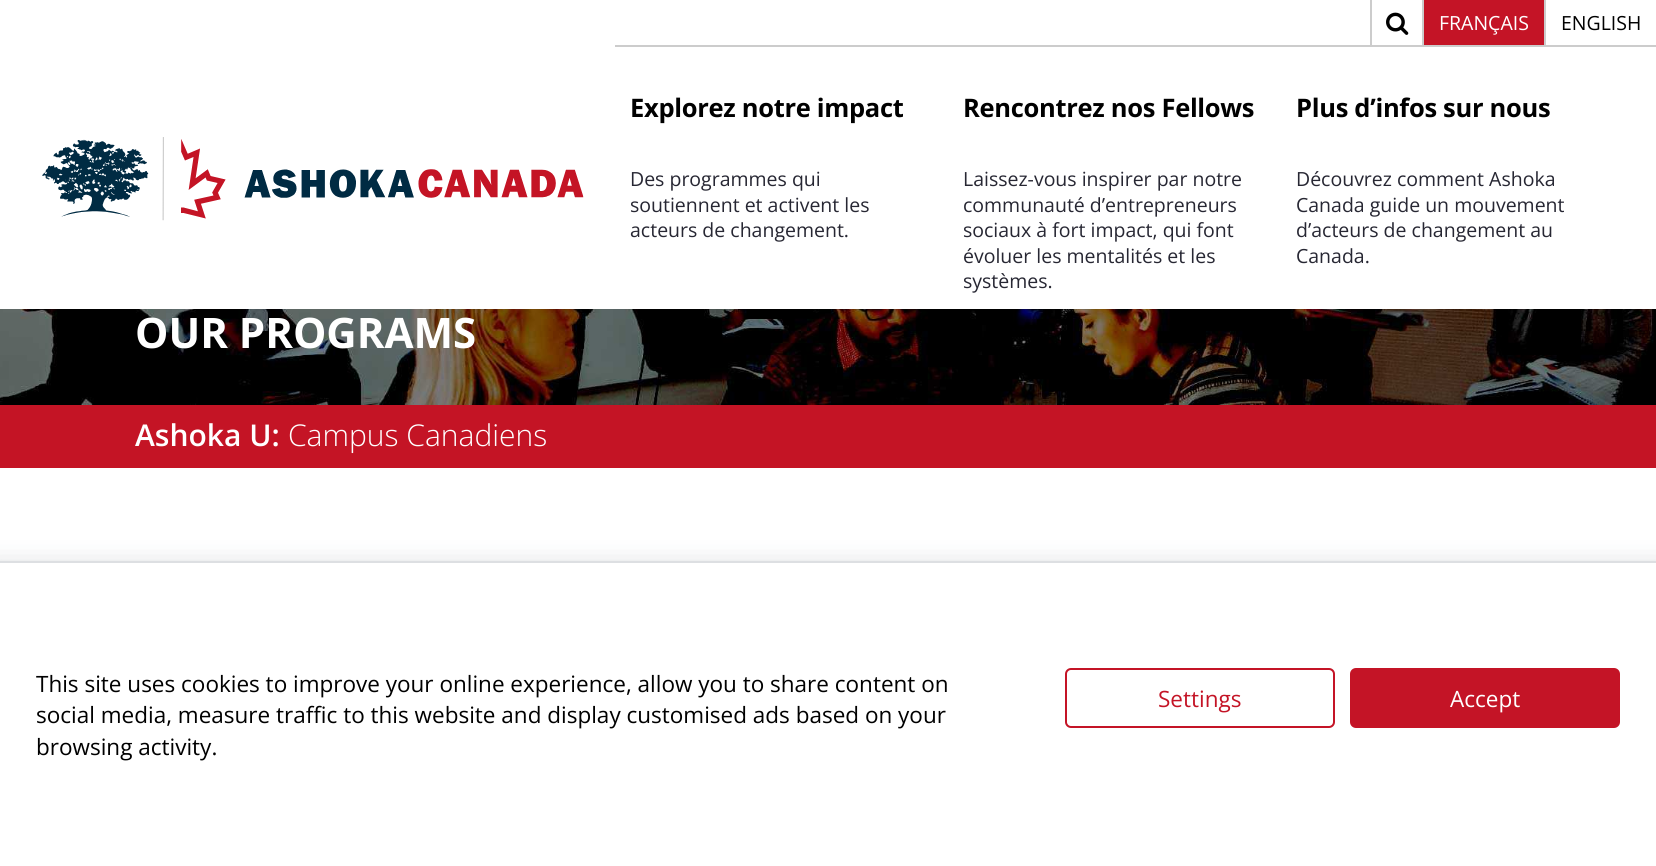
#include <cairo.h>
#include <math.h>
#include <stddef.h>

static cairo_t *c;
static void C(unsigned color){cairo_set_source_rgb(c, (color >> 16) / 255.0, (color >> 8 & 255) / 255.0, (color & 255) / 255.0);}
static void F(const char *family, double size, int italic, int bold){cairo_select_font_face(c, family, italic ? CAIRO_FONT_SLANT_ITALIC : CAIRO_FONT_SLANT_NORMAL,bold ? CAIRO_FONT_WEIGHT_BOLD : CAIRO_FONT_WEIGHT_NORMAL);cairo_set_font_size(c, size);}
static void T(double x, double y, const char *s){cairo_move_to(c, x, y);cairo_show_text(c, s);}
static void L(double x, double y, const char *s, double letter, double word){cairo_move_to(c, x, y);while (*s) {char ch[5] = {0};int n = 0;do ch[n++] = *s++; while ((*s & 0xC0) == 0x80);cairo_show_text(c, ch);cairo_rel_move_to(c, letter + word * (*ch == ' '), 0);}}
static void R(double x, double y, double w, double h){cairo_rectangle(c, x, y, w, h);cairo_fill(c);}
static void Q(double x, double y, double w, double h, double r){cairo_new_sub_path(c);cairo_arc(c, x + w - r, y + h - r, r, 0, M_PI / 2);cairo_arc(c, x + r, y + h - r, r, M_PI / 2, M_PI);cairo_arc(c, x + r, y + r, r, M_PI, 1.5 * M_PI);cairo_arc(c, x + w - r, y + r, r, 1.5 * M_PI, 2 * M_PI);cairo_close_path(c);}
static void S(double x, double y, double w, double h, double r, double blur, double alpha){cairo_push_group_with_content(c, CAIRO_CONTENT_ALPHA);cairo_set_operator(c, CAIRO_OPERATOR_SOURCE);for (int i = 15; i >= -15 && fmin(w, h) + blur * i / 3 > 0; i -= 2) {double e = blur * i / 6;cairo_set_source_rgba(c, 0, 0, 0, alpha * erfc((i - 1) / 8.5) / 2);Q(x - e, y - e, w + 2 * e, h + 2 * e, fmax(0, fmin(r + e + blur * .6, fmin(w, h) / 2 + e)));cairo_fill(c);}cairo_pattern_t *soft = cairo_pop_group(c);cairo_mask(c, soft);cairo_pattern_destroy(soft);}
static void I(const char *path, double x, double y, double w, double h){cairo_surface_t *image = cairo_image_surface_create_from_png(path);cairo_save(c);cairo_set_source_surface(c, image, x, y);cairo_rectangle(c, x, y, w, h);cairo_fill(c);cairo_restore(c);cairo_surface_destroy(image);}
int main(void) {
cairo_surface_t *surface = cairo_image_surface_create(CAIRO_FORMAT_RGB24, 1656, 866);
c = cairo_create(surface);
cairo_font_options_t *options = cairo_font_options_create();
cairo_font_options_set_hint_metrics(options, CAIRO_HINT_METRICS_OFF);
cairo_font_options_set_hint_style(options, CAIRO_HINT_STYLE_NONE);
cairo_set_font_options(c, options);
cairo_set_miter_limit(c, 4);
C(0xffffff);
cairo_paint(c);
C(0xcccccc);
R(615,45,1041,2);
R(1422,0,2,45);
R(1370,0,2,45);
I("1.png",1386,12,23,23);
C(0xc41426);
R(1424,0,120,45);
C(0xcccccc);
R(1544,0,2,45);
F("Open Sans",19.5,0,0);
C(0xffffff);
T(1439,30,"FRANÇAIS");
C(0x000000);
T(1561,30,"ENGLISH");
I("2.png",42,137,542,84);
F("Open Sans",25.5,0,1);
L(630,117,"Explorez notre impact",-.3,0);
F("Open Sans",19.5,0,0);
C(0x272733);
T(630,186,"Des programmes qui");
T(630,212,"soutiennent et activent les");
T(630,237,"acteurs de changement.");
F("Open Sans",25.5,0,1);
C(0x000000);
L(963,117,"Rencontrez nos Fellows",-.3,0);
F("Open Sans",19.5,0,0);
C(0x272733);
T(963,186,"Laissez-vous inspirer par notre");
T(963,212,"communauté d’entrepreneurs");
T(963,237,"sociaux à fort impact, qui font");
T(963,263,"évoluer les mentalités et les");
T(963,288,"systèmes.");
F("Open Sans",25.5,0,1);
C(0x000000);
L(1296,117,"Plus d’infos sur nous",-.3,0);
F("Open Sans",19.5,0,0);
C(0x272733);
T(1296,186,"Découvrez comment Ashoka");
T(1296,212,"Canada guide un mouvement");
T(1296,237,"d’acteurs de changement au");
T(1296,263,"Canada.");
I("3.png",0,309,1656,96);
F("Open Sans",42,0,1);
C(0xffffff);
T(135,348,"OUR PROGRAMS");
C(0xc41425);
R(0,405,1656,63);
F("Open Sans SemiBold",30,0,0);
C(0xffffff);
T(135,446,"Ashoka U:");
F("Open Sans Light",30,0,0);
T(288,446,"Campus Canadiens");
C(0x242f42);
S(-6,572,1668,286,0,15,.31);
cairo_rectangle(c,-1,562,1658,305);
cairo_set_source_rgba(c,0.141,0.184,0.259,0.08);
cairo_stroke(c);
C(0xffffff);
R(0,563,1656,303);
F("Open Sans",22.5,0,0);
C(0x000000);
T(36,692,"This site uses cookies to improve your online experience, allow you to share content on");
T(36,723,"social media, measure traffic to this website and display customised ads based on your");
T(36,755,"browsing activity.");
Q(1066,669,268,58,5);
C(0xc41426);
cairo_stroke(c);
T(1158,707,"Settings");
Q(1351,669,268,58,5);
cairo_fill_preserve(c);
cairo_stroke(c);
C(0xffffff);
T(1450,707,"Accept");
cairo_surface_write_to_png(surface, "o.png");
cairo_font_options_destroy(options);
cairo_destroy(c);
cairo_surface_destroy(surface);
return 0;
}
